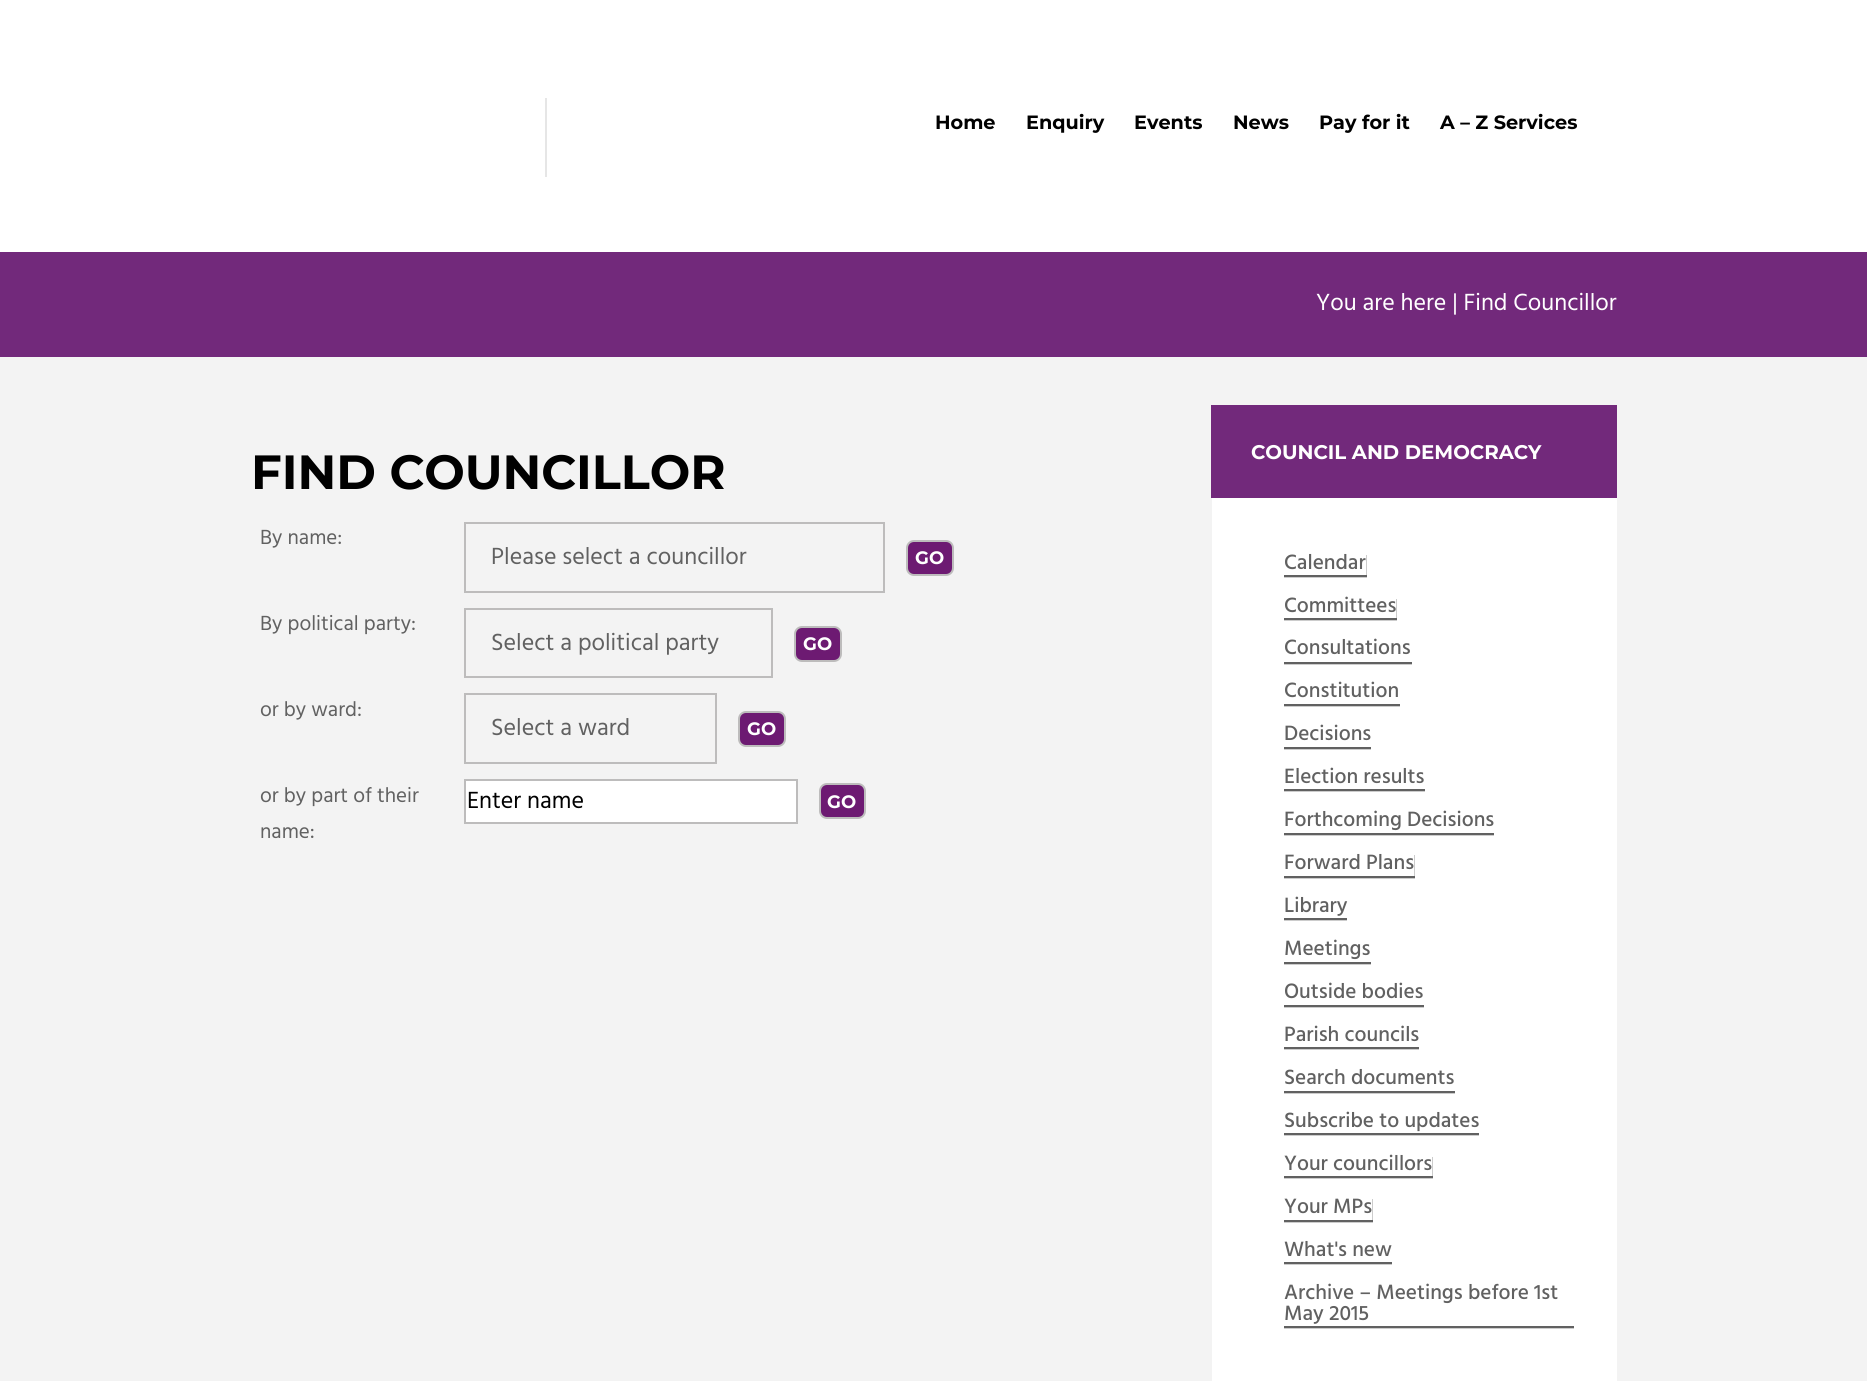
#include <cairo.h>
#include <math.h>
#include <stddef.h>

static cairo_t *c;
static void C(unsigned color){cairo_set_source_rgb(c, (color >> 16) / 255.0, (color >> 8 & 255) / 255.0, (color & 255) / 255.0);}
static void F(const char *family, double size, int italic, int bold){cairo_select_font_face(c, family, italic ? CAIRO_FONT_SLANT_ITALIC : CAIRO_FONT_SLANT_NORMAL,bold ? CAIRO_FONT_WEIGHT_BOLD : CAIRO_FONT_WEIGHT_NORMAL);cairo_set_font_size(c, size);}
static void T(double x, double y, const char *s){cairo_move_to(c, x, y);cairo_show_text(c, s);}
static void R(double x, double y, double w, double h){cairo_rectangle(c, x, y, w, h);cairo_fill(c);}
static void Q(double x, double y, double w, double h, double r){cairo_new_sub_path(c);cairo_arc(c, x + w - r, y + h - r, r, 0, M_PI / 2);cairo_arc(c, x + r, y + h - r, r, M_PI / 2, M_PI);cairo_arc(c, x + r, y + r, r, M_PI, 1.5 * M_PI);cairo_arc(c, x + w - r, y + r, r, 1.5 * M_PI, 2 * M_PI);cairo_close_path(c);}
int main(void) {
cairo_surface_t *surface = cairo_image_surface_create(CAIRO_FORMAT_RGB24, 1867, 1381);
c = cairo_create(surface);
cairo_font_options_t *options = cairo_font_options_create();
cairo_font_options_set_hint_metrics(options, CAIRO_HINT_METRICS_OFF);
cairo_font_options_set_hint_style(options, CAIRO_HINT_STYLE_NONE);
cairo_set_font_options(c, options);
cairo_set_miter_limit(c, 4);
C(0xffffff);
cairo_paint(c);
C(0xf3f3f3);
R(0,357,1867,1024);
C(0xe6e6e6);
R(545,98,2,79);
F("Montserrat",19.25,0,1);
C(0x000000);
T(935,129,"Home");
T(1026,129,"Enquiry");
T(1134,129,"Events");
T(1233,129,"News");
T(1319,129,"Pay for it");
T(1440,129,"A – Z Services");
C(0x72297b);
R(0,252,1867,105);
F("Hind",24,0,0);
C(0xffffff);
T(1316,310,"You are here | Find Councillor");
F("Montserrat",48,0,1);
C(0x000000);
T(251,489,"FIND COUNCILLOR");
F("Hind",21,0,0);
C(0x616161);
T(260,544,"By name:");
cairo_rectangle(c,465,523,419,69);
C(0xbdbcbc);
cairo_stroke(c);
F("Hind",24,0,0);
C(0x616161);
T(491,564,"Please select a councillor");
C(0x6d1a72);
Q(907,541,46,34,7);
cairo_fill_preserve(c);
C(0xbdbcbc);
cairo_stroke(c);
F("Montserrat",18,0,1);
C(0xffffff);
T(915,564,"GO");
F("Hind",21,0,0);
C(0x616161);
T(260,630,"By political party:");
cairo_rectangle(c,465,609,307,68);
C(0xbdbcbc);
cairo_stroke(c);
F("Hind",24,0,0);
C(0x616161);
T(491,650,"Select a political party");
C(0x6d1a72);
Q(795,627,46,34,7);
cairo_fill_preserve(c);
C(0xbdbcbc);
cairo_stroke(c);
F("Montserrat",18,0,1);
C(0xffffff);
T(803,650,"GO");
F("Hind",21,0,0);
C(0x616161);
T(260,716,"or by ward:");
cairo_rectangle(c,465,694,251,69);
C(0xbdbcbc);
cairo_stroke(c);
F("Hind",24,0,0);
C(0x616161);
T(491,735,"Select a ward");
C(0x6d1a72);
Q(739,712,46,34,7);
cairo_fill_preserve(c);
C(0xbdbcbc);
cairo_stroke(c);
F("Montserrat",18,0,1);
C(0xffffff);
T(747,735,"GO");
F("Hind",21,0,0);
C(0x616161);
T(260,802,"or by part of their");
T(260,838,"name:");
C(0xffffff);
cairo_rectangle(c,465,780,332,43);
cairo_fill_preserve(c);
C(0xbdbcbc);
cairo_stroke(c);
F("Hind",24,0,0);
C(0x000000);
T(467,808,"Enter name");
C(0x6d1a72);
Q(820,784,45,34,7);
cairo_fill_preserve(c);
C(0xbdbcbc);
cairo_stroke(c);
F("Montserrat",18,0,1);
C(0xffffff);
T(827,808,"GO");
R(1212,498,405,883);
C(0x72297b);
R(1211,405,406,93);
F("Montserrat",19.75,0,1);
C(0xffffff);
T(1251,459,"COUNCIL AND DEMOCRACY");
C(0xcccccc);
cairo_new_path(c);
cairo_move_to(c,1284,576);
cairo_line_to(c,1284,578);
cairo_line_to(c,1367,578);
cairo_line_to(c,1367,555);
cairo_line_to(c,1366,555);
cairo_line_to(c,1366,576);
cairo_close_path(c);
cairo_fill(c);
C(0x616161);
R(1284,575,83,2);
F("Hind Medium",21.25,0,0);
T(1284,569,"Calendar");
C(0xcccccc);
cairo_new_path(c);
cairo_move_to(c,1284,620);
cairo_line_to(c,1284,621);
cairo_line_to(c,1397,621);
cairo_line_to(c,1397,599);
cairo_line_to(c,1396,599);
cairo_line_to(c,1396,620);
cairo_close_path(c);
cairo_fill(c);
C(0x616161);
R(1284,618,113,2);
T(1284,612,"Committees");
C(0xcccccc);
cairo_new_path(c);
cairo_move_to(c,1284,663);
cairo_line_to(c,1284,665);
cairo_line_to(c,1412,665);
cairo_line_to(c,1412,641);
cairo_line_to(c,1412,663);
cairo_close_path(c);
cairo_fill(c);
C(0x616161);
R(1284,662,128,2);
T(1284,654,"Consultations");
C(0xcccccc);
cairo_new_path(c);
cairo_move_to(c,1284,705);
cairo_line_to(c,1284,707);
cairo_line_to(c,1400,707);
cairo_line_to(c,1400,684);
cairo_line_to(c,1400,705);
cairo_close_path(c);
cairo_fill(c);
C(0x616161);
R(1284,704,116,2);
T(1284,697,"Constitution");
C(0xcccccc);
R(1284,749,87,1);
C(0x616161);
R(1284,747,87,2);
T(1284,740,"Decisions");
C(0xcccccc);
R(1284,791,141,1);
C(0x616161);
R(1284,789,141,2);
T(1284,783,"Election results");
C(0xcccccc);
R(1284,835,210,1);
C(0x616161);
R(1284,833,210,2);
T(1284,826,"Forthcoming Decisions");
C(0xcccccc);
cairo_new_path(c);
cairo_move_to(c,1284,878);
cairo_line_to(c,1284,879);
cairo_line_to(c,1415,879);
cairo_line_to(c,1415,855);
cairo_line_to(c,1414,855);
cairo_line_to(c,1414,878);
cairo_close_path(c);
cairo_fill(c);
C(0x616161);
R(1284,876,131,2);
T(1284,869,"Forward Plans");
C(0xcccccc);
R(1284,920,63,1);
C(0x616161);
R(1284,918,63,2);
T(1284,912,"Library");
C(0xcccccc);
R(1284,964,87,1);
C(0x616161);
R(1284,962,87,2);
T(1284,955,"Meetings");
C(0xcccccc);
cairo_new_path(c);
cairo_move_to(c,1284,1006);
cairo_line_to(c,1284,1008);
cairo_line_to(c,1424,1008);
cairo_line_to(c,1424,984);
cairo_line_to(c,1424,1006);
cairo_close_path(c);
cairo_fill(c);
C(0x616161);
R(1284,1005,140,2);
T(1284,998,"Outside bodies");
C(0xcccccc);
R(1284,1049,135,1);
C(0x616161);
R(1284,1047,135,2);
T(1284,1041,"Parish councils");
C(0xcccccc);
R(1284,1093,171,1);
C(0x616161);
R(1284,1091,171,2);
T(1284,1084,"Search documents");
C(0xcccccc);
R(1284,1135,195,1);
C(0x616161);
R(1284,1133,195,2);
T(1284,1127,"Subscribe to updates");
C(0xcccccc);
cairo_new_path(c);
cairo_move_to(c,1284,1178);
cairo_line_to(c,1284,1179);
cairo_line_to(c,1433,1179);
cairo_line_to(c,1433,1157);
cairo_line_to(c,1432,1157);
cairo_line_to(c,1432,1178);
cairo_close_path(c);
cairo_fill(c);
C(0x616161);
R(1284,1176,149,2);
T(1284,1170,"Your councillors");
C(0xcccccc);
cairo_new_path(c);
cairo_move_to(c,1284,1221);
cairo_line_to(c,1284,1223);
cairo_line_to(c,1373,1223);
cairo_line_to(c,1373,1199);
cairo_line_to(c,1372,1199);
cairo_line_to(c,1372,1221);
cairo_close_path(c);
cairo_fill(c);
C(0x616161);
R(1284,1220,89,2);
T(1284,1213,"Your MPs");
C(0xcccccc);
R(1284,1264,108,1);
C(0x616161);
R(1284,1262,108,2);
T(1284,1256,"What's new");
C(0xcccccc);
cairo_new_path(c);
cairo_move_to(c,1284,1328);
cairo_line_to(c,1284,1329);
cairo_line_to(c,1574,1329);
cairo_line_to(c,1574,1286);
cairo_line_to(c,1574,1328);
cairo_close_path(c);
cairo_fill(c);
C(0x616161);
R(1284,1326,290,2);
T(1284,1299,"Archive – Meetings before 1st");
T(1284,1320,"May 2015");
cairo_surface_write_to_png(surface, "o.png");
cairo_font_options_destroy(options);
cairo_destroy(c);
cairo_surface_destroy(surface);
return 0;
}
